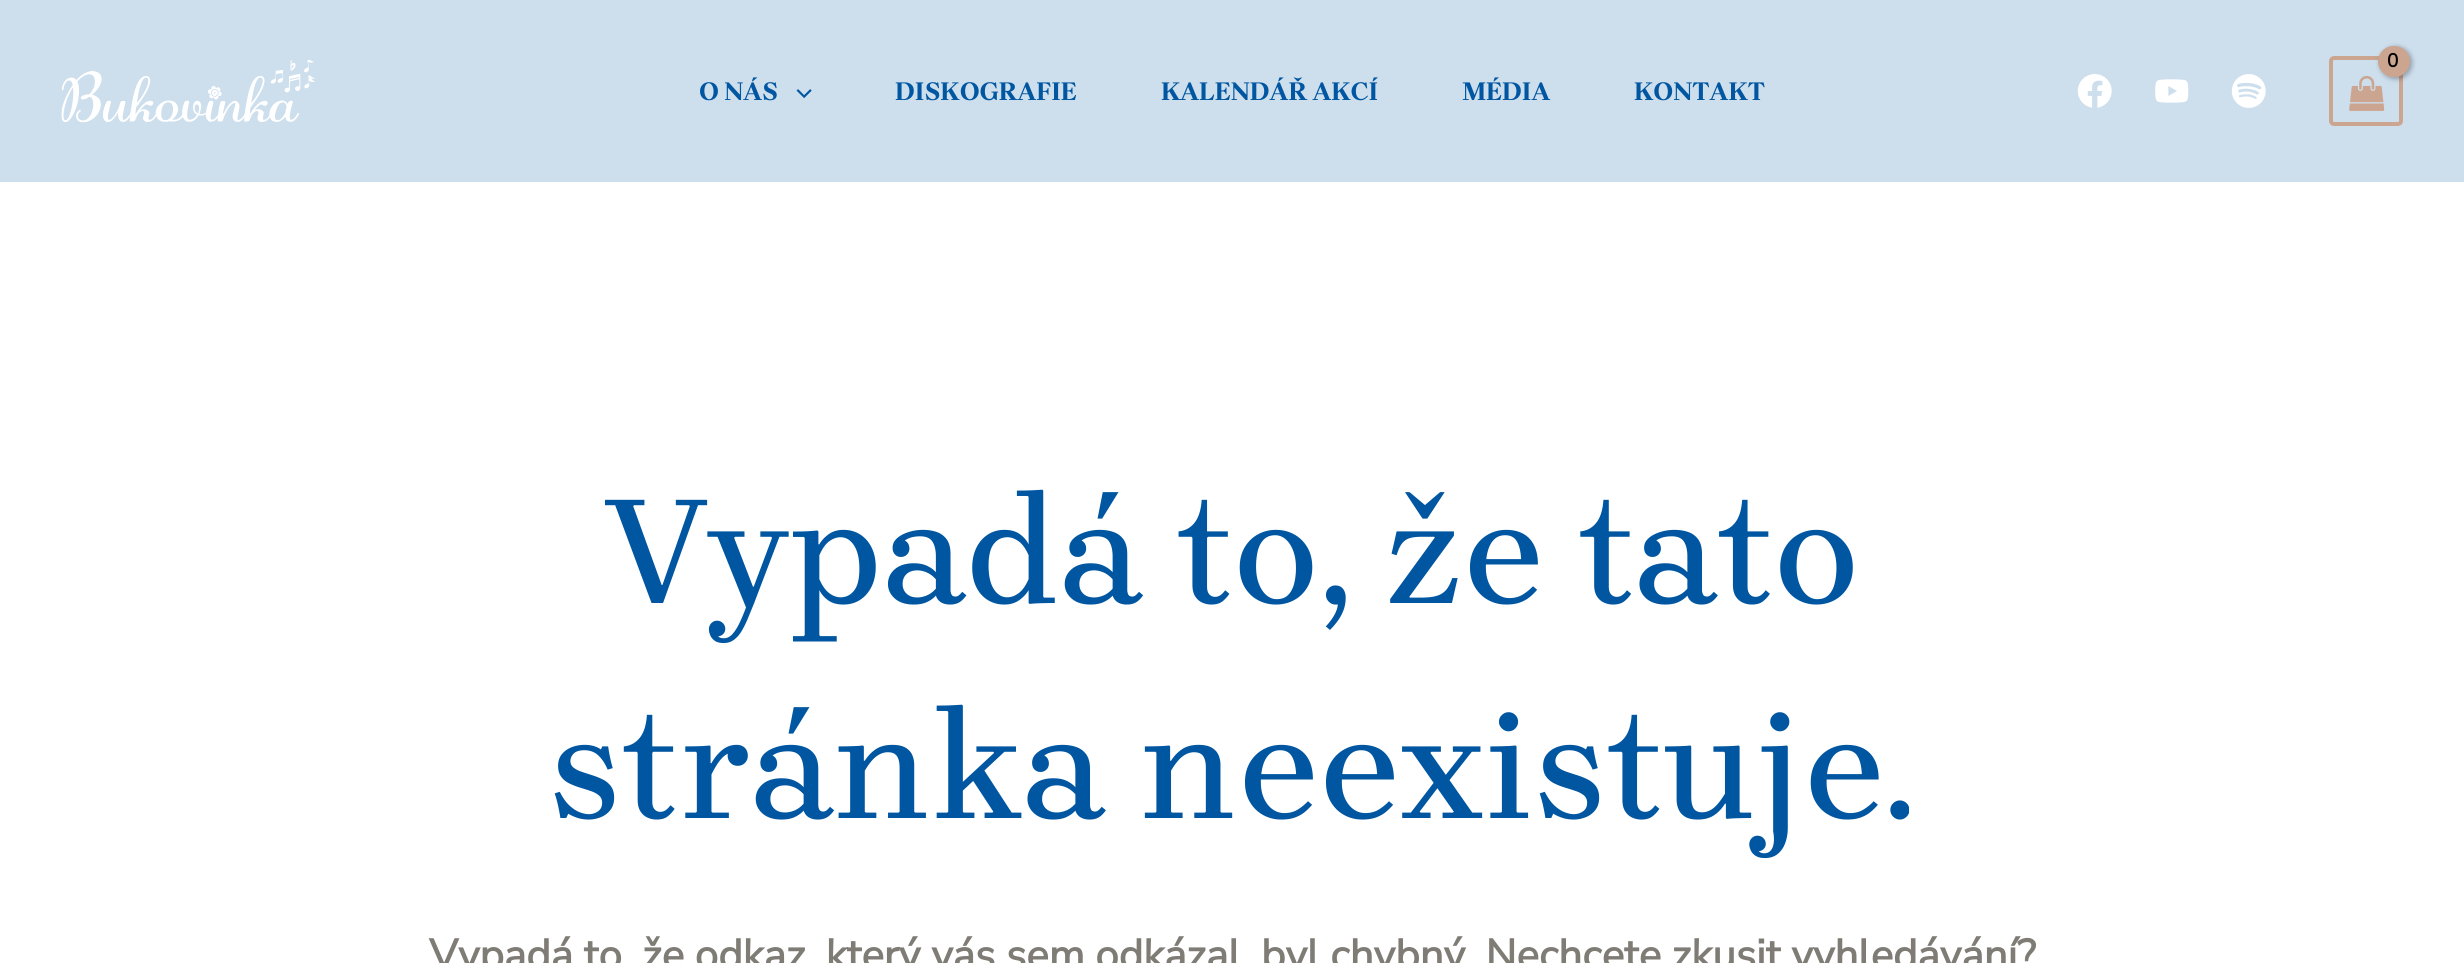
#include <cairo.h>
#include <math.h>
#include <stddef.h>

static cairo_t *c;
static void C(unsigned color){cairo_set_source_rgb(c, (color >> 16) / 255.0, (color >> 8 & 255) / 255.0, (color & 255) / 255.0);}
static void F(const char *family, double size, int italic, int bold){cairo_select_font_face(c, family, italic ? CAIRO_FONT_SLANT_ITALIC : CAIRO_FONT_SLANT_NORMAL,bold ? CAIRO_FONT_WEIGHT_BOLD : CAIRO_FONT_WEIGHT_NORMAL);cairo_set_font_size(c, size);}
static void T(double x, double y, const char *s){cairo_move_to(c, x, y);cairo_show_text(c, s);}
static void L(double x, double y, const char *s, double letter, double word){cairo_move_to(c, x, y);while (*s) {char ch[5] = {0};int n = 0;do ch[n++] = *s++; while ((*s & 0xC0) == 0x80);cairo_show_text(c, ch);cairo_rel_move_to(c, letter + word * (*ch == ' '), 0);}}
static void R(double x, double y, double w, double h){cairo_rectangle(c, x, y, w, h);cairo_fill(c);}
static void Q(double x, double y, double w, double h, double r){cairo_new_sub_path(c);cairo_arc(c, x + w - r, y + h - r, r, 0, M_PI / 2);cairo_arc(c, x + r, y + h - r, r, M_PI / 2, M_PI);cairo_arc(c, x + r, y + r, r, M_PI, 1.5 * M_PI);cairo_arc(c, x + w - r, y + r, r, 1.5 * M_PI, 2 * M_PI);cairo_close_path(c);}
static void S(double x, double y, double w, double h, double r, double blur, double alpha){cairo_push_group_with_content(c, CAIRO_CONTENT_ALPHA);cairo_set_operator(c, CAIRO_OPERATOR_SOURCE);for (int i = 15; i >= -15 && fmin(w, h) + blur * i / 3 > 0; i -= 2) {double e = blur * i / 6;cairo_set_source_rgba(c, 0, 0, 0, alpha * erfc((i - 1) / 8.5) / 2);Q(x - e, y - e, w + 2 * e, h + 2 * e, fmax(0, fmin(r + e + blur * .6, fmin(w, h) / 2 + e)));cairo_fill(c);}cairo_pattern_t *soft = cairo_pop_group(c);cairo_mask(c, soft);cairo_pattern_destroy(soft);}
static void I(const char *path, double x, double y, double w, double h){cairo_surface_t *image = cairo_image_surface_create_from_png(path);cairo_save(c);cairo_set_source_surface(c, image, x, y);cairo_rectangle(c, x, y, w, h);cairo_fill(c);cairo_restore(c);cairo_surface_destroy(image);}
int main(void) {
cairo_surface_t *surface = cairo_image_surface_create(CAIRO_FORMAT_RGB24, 2464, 963);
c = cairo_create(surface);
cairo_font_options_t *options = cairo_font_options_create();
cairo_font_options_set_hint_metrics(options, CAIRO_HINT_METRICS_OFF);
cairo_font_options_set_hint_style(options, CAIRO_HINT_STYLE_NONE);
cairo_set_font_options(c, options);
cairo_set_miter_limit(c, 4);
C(0xffffff);
cairo_paint(c);
C(0xcddeed);
R(0,0,2464,182);
I("1.png",61,60,254,63);
F("Brygada 1918",26.25,0,1);
C(0x0056a1);
T(699,100,"O NÁS");
I("2.png",796,89,16,10);
T(895,100,"DISKOGRAFIE");
T(1161,100,"KALENDÁŘ AKCÍ");
T(1462,100,"MÉDIA");
T(1634,100,"KONTAKT");
Q(2331,58,70,66,3);
C(0xcba590);
cairo_set_line_width(c,4);
cairo_stroke(c);
I("3.png",2349,75,36,36);
C(0x000000);
S(2380,47,32,32,16,2.5,.3);
C(0xcba590);
Q(2378,46,32,31,15.5);
cairo_fill(c);
F("Nunito Sans",19,0,1);
C(0x000000);
L(2387,67,"0",-1,0);
I("4.png",2077,74,35,34);
I("5.png",2155,79,34,24);
I("6.png",2231,74,35,34);
F("Brygada 1918 Medium",154,0,0);
C(0x0056a1);
T(603,603,"Vypadá to, že tato");
T(549,818,"stránka neexistuje.");
F("Nunito Sans",42,0,1);
C(0x7f7c76);
T(429,969,"Vypadá to, že odkaz, který vás sem odkázal, byl chybný. Nechcete zkusit vyhledávání?");
cairo_surface_write_to_png(surface, "o.png");
cairo_font_options_destroy(options);
cairo_destroy(c);
cairo_surface_destroy(surface);
return 0;
}
